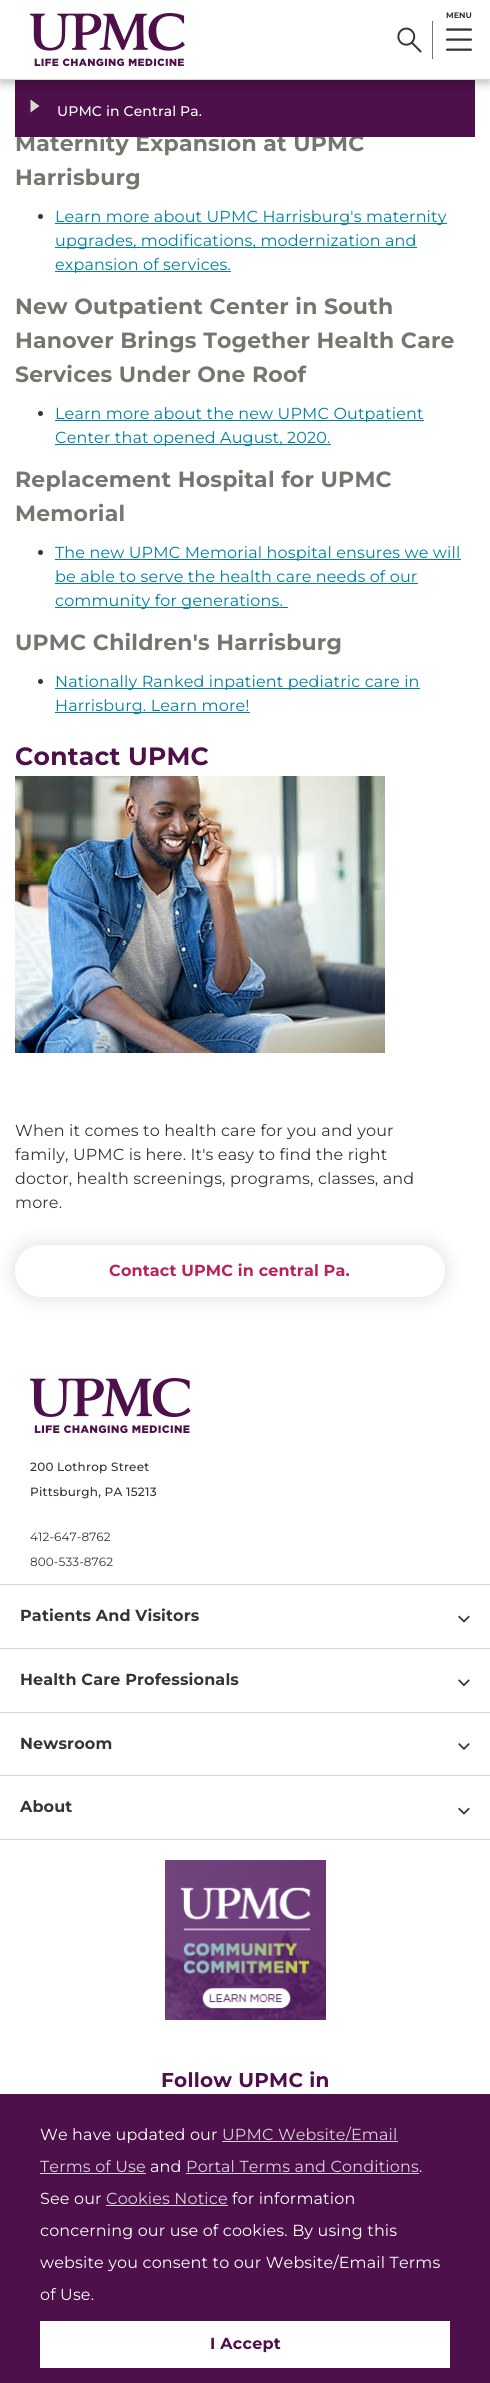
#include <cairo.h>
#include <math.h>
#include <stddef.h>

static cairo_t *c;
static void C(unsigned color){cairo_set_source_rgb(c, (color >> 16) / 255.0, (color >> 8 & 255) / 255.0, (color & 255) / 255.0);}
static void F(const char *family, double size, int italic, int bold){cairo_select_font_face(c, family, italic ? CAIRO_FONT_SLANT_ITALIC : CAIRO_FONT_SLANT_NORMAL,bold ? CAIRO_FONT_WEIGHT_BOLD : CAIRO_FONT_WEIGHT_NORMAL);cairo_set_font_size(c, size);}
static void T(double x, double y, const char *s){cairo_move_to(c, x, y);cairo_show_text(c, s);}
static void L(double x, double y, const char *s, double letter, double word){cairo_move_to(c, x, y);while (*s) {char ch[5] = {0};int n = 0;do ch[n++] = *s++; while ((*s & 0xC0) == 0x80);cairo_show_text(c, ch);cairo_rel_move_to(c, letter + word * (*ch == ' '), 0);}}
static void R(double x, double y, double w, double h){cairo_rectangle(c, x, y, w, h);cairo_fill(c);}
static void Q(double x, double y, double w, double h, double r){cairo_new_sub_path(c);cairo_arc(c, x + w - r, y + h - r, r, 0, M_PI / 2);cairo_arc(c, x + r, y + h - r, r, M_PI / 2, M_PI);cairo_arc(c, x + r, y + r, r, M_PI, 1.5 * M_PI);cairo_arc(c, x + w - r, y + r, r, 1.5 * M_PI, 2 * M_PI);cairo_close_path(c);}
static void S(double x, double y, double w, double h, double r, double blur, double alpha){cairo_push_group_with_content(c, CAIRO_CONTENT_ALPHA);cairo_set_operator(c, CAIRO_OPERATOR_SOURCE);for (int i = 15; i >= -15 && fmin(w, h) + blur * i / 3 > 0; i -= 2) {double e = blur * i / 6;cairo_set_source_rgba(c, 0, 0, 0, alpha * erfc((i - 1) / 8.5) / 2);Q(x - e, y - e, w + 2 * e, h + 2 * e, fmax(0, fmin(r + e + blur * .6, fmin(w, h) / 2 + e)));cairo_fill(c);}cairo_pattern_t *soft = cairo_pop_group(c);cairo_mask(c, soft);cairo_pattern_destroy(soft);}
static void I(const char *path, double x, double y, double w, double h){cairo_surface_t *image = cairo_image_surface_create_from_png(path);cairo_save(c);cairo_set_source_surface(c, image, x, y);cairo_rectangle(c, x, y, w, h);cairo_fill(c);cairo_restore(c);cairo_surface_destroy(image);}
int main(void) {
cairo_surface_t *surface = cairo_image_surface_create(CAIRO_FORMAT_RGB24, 490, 2383);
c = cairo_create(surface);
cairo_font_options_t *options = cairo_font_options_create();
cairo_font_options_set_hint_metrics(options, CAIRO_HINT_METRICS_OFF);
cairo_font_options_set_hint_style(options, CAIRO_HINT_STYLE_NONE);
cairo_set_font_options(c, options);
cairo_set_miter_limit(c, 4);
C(0xffffff);
cairo_paint(c);
F("Montserrat Thin",22,0,0);
C(0x75776f);
L(15,151,"Maternity Expansion at UPMC",.2,0);
C(0x4d104a);
R(15,80,460,57);
C(0xdbd9d6);
cairo_new_path(c);
cairo_move_to(c,39.5,106);
cairo_line_to(c,30.5,112.5);
cairo_line_to(c,30.5,99.5);
cairo_close_path(c);
cairo_fill(c);
C(0x000000);
S(0,5,490,80,0,5,.16);
C(0xffffff);
R(0,0,490,79);
cairo_save(c);
cairo_rectangle(c,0,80,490,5);
cairo_clip(c);
C(0x000000);
S(0,0,490,80,0,5,.13);
cairo_restore(c);
C(0xdbd9d6);
R(0,79,490,1);
I("1.png",30,13,155,53);
F("Montserrat Thin",8,0,0);
C(0x363533);
T(446,18,"MENU");
I("2.png",446,28,26,23);
C(0x75776f);
R(432,21,1,38);
I("3.png",397,27,25,26);
F("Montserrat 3 Thin",14,0,0);
C(0xffffff);
L(57,116,"UPMC in Central Pa.",.1,0);
F("Montserrat Thin",22,0,0);
C(0x75776f);
L(15,185,"Harrisburg",.2,0);
C(0x363533);
cairo_new_path(c);
cairo_arc(c,40.5,216.5,2.5,0,2 * M_PI);
cairo_fill(c);
C(0x00819f);
R(55,223,392,1);
F("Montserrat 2 Thin",16,0,0);
L(55,222,"Learn more about UPMC Harrisburg's maternity",.15,0);
R(55,247,362,1);
L(55,246,"upgrades, modifications, modernization and",.15,0);
R(55,271,176,1);
L(55,270,"expansion of services.",.15,0);
F("Montserrat Thin",22,0,0);
C(0x75776f);
L(15,314,"New Outpatient Center in South",.2,0);
L(15,348,"Hanover Brings Together Health Care",.2,0);
L(15,382,"Services Under One Roof",.2,0);
C(0x363533);
cairo_new_path(c);
cairo_arc(c,40.5,413.5,2.5,0,2 * M_PI);
cairo_fill(c);
C(0x00819f);
R(55,420,369,1);
F("Montserrat 2 Thin",16,0,0);
L(55,419,"Learn more about the new UPMC Outpatient",.15,0);
R(55,444,276,1);
L(55,443,"Center that opened August, 2020.",.15,0);
F("Montserrat Thin",22,0,0);
C(0x75776f);
L(15,487,"Replacement Hospital for UPMC",.2,0);
L(15,521,"Memorial",.2,0);
C(0x363533);
cairo_new_path(c);
cairo_arc(c,40.5,552.5,2.5,0,2 * M_PI);
cairo_fill(c);
C(0x00819f);
R(55,559,406,1);
F("Montserrat 2 Thin",16,0,0);
L(55,558,"The new UPMC Memorial hospital ensures we will",.15,0);
L(55,582,"be able to serve the health care needs of our",.15,0);
R(55,583,363,1);
R(55,607,233,1);
L(55,606,"community for generations.",.15,0);
F("Montserrat Thin",22,0,0);
C(0x75776f);
L(15,650,"UPMC Children's Harrisburg",.2,0);
C(0x363533);
cairo_new_path(c);
cairo_arc(c,40.5,681.5,2.5,0,2 * M_PI);
cairo_fill(c);
C(0x00819f);
R(55,688,365,1);
F("Montserrat 2 Thin",16,0,0);
L(55,687,"Nationally Ranked inpatient pediatric care in",.15,0);
R(55,712,195,1);
L(55,711,"Harrisburg. Learn more!",.15,0);
F("Montserrat Thin",25,0,0);
C(0x4d104a);
L(15,765,"Contact UPMC",.25,0);
I("4.png",15,776,370,277);
F("Montserrat 2 Thin",16,0,0);
C(0x363533);
L(15,1136,"When it comes to health care for you and your",.15,0);
L(15,1160,"family, UPMC is here. It's easy to find the right",.15,0);
L(15,1184,"doctor, health screenings, programs, classes, and",.15,0);
L(15,1208,"more.",.15,0);
C(0x000000);
S(15,1245,430,52,26,10,.13);
C(0xffffff);
Q(15,1245,430,52,26);
cairo_fill(c);
F("Montserrat Thin",16,0,0);
C(0xbb2253);
L(109,1276,"Contact UPMC in central Pa.",.15,0);
C(0xdbd9d6);
R(0,1584,490,1);
I("5.png",30,1378,161,56);
F("Montserrat 3 Thin",12,0,0);
C(0x363533);
L(30,1471,"200 Lothrop Street",.25,0);
L(30,1496,"Pittsburgh, PA 15213",.25,0);
F("Montserrat 2 Thin",12,0,0);
L(30,1541,"412-647-8762",.1,0);
L(30,1566,"800-533-8762",.1,0);
C(0xdbd9d6);
R(0,1648,490,1);
F("Montserrat Thin",16,0,0);
C(0x363533);
L(20,1621,"Patients And Visitors",.15,0);
I("6.png",458,1615,12,8);
C(0xdbd9d6);
R(0,1712,490,1);
C(0x363533);
L(20,1685,"Health Care Professionals",.15,0);
I("7.png",458,1679,12,8);
C(0xdbd9d6);
R(0,1775,490,1);
C(0x363533);
L(20,1749,"Newsroom",.15,0);
I("8.png",458,1743,12,7);
C(0xdbd9d6);
R(0,1839,490,1);
C(0x363533);
L(20,1812,"About",.15,0);
I("9.png",458,1807,12,8);
I("10.png",165,1860,161,160);
F("Montserrat Thin",20,0,0);
C(0x4d104a);
L(161,2087,"Follow UPMC in",.25,0);
R(0,2094,490,289);
F("Montserrat 2 Thin",16,0,0);
C(0xffffff);
L(40,2140,"We have updated our",.15,0);
C(0xdbcfdb);
R(222,2141,176,1);
L(222,2140,"UPMC Website/Email",.15,0);
L(40,2172,"Terms of Use",.15,0);
R(40,2173,106,1);
C(0xffffff);
L(150,2172,"and",.15,0);
C(0xdbcfdb);
L(186,2172,"Portal Terms and Conditions",.15,0);
R(186,2173,233,1);
C(0xffffff);
L(419,2172,".",.15,0);
L(40,2204,"See our",.15,0);
C(0xdbcfdb);
L(106,2204,"Cookies Notice",.15,0);
R(106,2205,122,1);
C(0xffffff);
L(232,2204,"for information",.15,0);
L(40,2236,"concerning our use of cookies. By using this",.15,0);
L(40,2268,"website you consent to our Website/Email Terms",.15,0);
L(40,2300,"of Use.",.15,0);
R(40,2321,410,47);
F("Montserrat Thin",16,0,0);
C(0x4d104a);
L(210,2349,"I Accept",.25,0);
cairo_surface_write_to_png(surface, "o.png");
cairo_font_options_destroy(options);
cairo_destroy(c);
cairo_surface_destroy(surface);
return 0;
}
